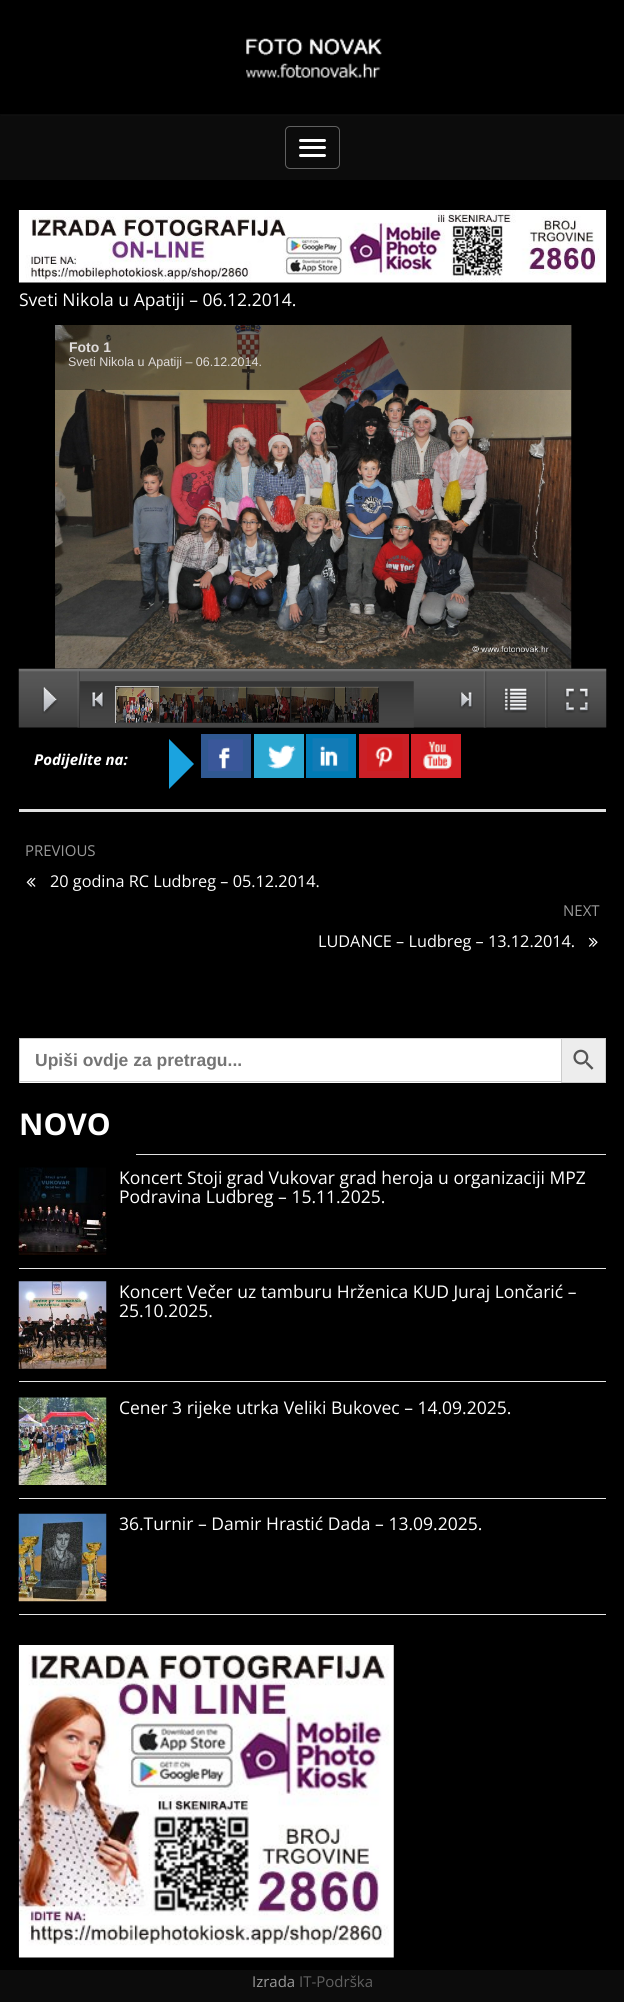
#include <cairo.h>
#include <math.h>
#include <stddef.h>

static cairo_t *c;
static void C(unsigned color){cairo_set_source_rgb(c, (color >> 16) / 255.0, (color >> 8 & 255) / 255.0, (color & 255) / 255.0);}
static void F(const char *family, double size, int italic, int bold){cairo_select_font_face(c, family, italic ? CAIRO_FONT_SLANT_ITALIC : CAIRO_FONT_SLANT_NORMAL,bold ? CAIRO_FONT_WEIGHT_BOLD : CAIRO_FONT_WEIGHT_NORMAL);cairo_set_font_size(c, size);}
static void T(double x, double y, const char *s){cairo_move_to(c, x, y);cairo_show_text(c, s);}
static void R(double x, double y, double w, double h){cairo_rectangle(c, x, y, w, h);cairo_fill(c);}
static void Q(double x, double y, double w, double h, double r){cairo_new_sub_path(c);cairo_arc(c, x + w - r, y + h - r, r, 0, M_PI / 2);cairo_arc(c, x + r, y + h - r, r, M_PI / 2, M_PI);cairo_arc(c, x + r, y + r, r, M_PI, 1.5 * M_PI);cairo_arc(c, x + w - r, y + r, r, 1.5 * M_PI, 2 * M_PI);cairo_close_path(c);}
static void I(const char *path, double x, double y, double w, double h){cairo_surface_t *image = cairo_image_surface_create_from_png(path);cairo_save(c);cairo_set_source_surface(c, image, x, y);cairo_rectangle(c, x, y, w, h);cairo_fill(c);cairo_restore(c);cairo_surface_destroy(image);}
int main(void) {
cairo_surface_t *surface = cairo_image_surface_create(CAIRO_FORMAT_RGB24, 624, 2002);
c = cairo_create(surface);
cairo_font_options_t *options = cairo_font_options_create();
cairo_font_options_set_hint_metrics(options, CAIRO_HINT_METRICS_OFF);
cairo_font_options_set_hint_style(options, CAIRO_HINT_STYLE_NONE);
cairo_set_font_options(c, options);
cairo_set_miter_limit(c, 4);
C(0x000000);
cairo_paint(c);
I("1.png",246,38,136,40);
C(0x0c0c0c);
R(0,114,624,66);
C(0x0f0f0f);
R(1,115,623,1);
Q(285.5,126.5,54,42,4.5);
C(0x616161);
cairo_set_line_width(c,1);
cairo_stroke(c);
C(0xffffff);
Q(299,139,27,3,1.5);
cairo_fill(c);
Q(299,146,27,3,1.5);
cairo_fill(c);
Q(299,154,27,3,1.5);
cairo_fill(c);
I("2.png",18,210,589,73);
F("Open Sans",17.5,0,0);
T(19,306,"Sveti Nikola u Apatiji – 06.12.2014.");
I("3.png",55,325,517,344);
cairo_set_source_rgba(c,0,0,0,0.35);
R(55,325,516,65);
F("Liberation Sans",14,0,1);
C(0xe0dcdc);
T(69,352,"Foto 1");
F("Liberation Sans",12.5,0,0);
T(68,366,"Sveti Nikola u Apatiji – 06.12.2014.");
I("4.png",18,668,589,60);
I("5.png",77,668,3,60);
I("6.png",483,668,4,60);
I("7.png",545,668,3,60);
I("8.png",42,687,16,27);
I("9.png",80,681,334,47);
cairo_save(c);
cairo_rectangle(c,115,686,264,37);
cairo_clip(c);
cairo_rectangle(c,115.5,686.5,43,43);
C(0xc3c3c3);
cairo_stroke(c);
cairo_restore(c);
I("10.png",116,687,43,36);
cairo_save(c);
cairo_rectangle(c,115,686,264,37);
cairo_clip(c);
cairo_rectangle(c,159.5,686.5,43,43);
C(0x3e3e3e);
cairo_stroke(c);
cairo_restore(c);
I("11.png",160,687,43,36);
cairo_save(c);
cairo_rectangle(c,115,686,264,37);
cairo_clip(c);
cairo_rectangle(c,203.5,686.5,42,43);
C(0x3e3e3e);
cairo_stroke(c);
cairo_restore(c);
I("12.png",203,687,45,36);
cairo_set_source_rgba(c,0,0,0,0.5);
R(160,688,44,35);
cairo_save(c);
cairo_rectangle(c,115,686,264,37);
cairo_clip(c);
cairo_rectangle(c,246.5,686.5,43,43);
C(0x3e3e3e);
cairo_stroke(c);
cairo_restore(c);
I("13.png",247,687,45,36);
R(204,688,44,35);
cairo_save(c);
cairo_rectangle(c,115,686,264,37);
cairo_clip(c);
cairo_rectangle(c,290.5,686.5,43,43);
C(0x3e3e3e);
cairo_stroke(c);
cairo_restore(c);
R(248,688,43,35);
I("14.png",291,687,43,36);
cairo_save(c);
cairo_rectangle(c,115,686,264,37);
cairo_clip(c);
cairo_rectangle(c,334.5,686.5,43,43);
C(0x3e3e3e);
cairo_stroke(c);
cairo_restore(c);
R(291,688,44,35);
I("15.png",335,687,43,36);
cairo_save(c);
cairo_rectangle(c,115,686,264,37);
cairo_clip(c);
cairo_rectangle(c,378.5,686.5,42,43);
C(0x3e3e3e);
cairo_stroke(c);
cairo_restore(c);
R(335,688,44,35);
I("16.png",503,688,25,25);
I("17.png",564,688,26,25);
I("18.png",91,692,13,17);
I("19.png",459,692,14,17);
F("Open Sans",15,1,1);
C(0xffffff);
T(34,765,"Podijelite na:");
C(0x1ba3df);
cairo_new_path(c);
cairo_move_to(c,169,789);
cairo_line_to(c,169,739);
cairo_line_to(c,194,764);
cairo_close_path(c);
cairo_fill(c);
C(0x305891);
R(201,734,50,44);
I("20.png",208,739,35,32);
C(0x2ca8d2);
R(254,734,50,44);
I("21.png",267,745,29,24);
C(0x007bb6);
R(306,734,50,44);
I("22.png",312,738,37,34);
C(0xca2027);
R(359,734,50,44);
I("23.png",367,737,36,34);
C(0xd42026);
R(411,734,50,44);
I("24.png",421,740,32,31);
C(0xe1e1e1);
R(19,809,587,3);
F("Open Sans",15,0,0);
C(0x999999);
T(25,856,"PREVIOUS");
I("25.png",26,877,10,10);
F("Open Sans",16.25,0,0);
C(0xffffff);
T(50,887,"20 godina RC Ludbreg – 05.12.2014.");
F("Open Sans",15,0,0);
C(0x999999);
T(563,916,"NEXT");
F("Open Sans",16.25,0,0);
C(0xffffff);
T(318,947,"LUDANCE – Ludbreg – 13.12.2014.");
I("26.png",588,937,10,10);
R(20,1039,541,44);
C(0xcccccc);
R(19,1038,542,1);
R(19,1081,542,1);
R(19,1038,1,45);
F("Liberation Sans",17.5,0,1);
C(0x757575);
T(35,1066,"Upiši ovdje za pretragu...");
C(0xededed);
cairo_rectangle(c,561.5,1038.5,44,44);
cairo_fill_preserve(c);
C(0xcccccc);
cairo_stroke(c);
I("27.png",573,1049,21,21);
F("Open Sans",30,0,1);
C(0xffffff);
T(19,1135,"NOVO");
C(0xe1e1e1);
R(136,1154,470,1);
C(0xe8e8e8);
R(19,1268,587,1);
I("28.png",18,1167,89,88);
F("Open Sans",17.5,0,0);
C(0xffffff);
T(119,1184,"Koncert Stoji grad Vukovar grad heroja u organizaciji MPZ");
T(119,1203,"Podravina Ludbreg – 15.11.2025.");
C(0xe8e8e8);
R(19,1381,587,1);
I("29.png",18,1281,89,88);
C(0xffffff);
T(119,1298,"Koncert Večer uz tamburu Hrženica KUD Juraj Lončarić –");
T(119,1317,"25.10.2025.");
C(0xe8e8e8);
R(19,1498,587,1);
I("30.png",18,1397,89,88);
C(0xffffff);
T(119,1414,"Cener 3 rijeke utrka Veliki Bukovec – 14.09.2025.");
C(0xe8e8e8);
R(19,1614,587,1);
I("31.png",18,1513,89,89);
C(0xffffff);
T(119,1530,"36.Turnir – Damir Hrastić Dada – 13.09.2025.");
I("32.png",18,1645,376,313);
C(0x0c0c0c);
R(0,1970,624,32);
F("Open Sans",15,0,0);
C(0x999999);
T(252,1987,"Izrada");
C(0x606060);
T(299,1987,"IT-Podrška");
cairo_surface_write_to_png(surface, "o.png");
cairo_font_options_destroy(options);
cairo_destroy(c);
cairo_surface_destroy(surface);
return 0;
}
